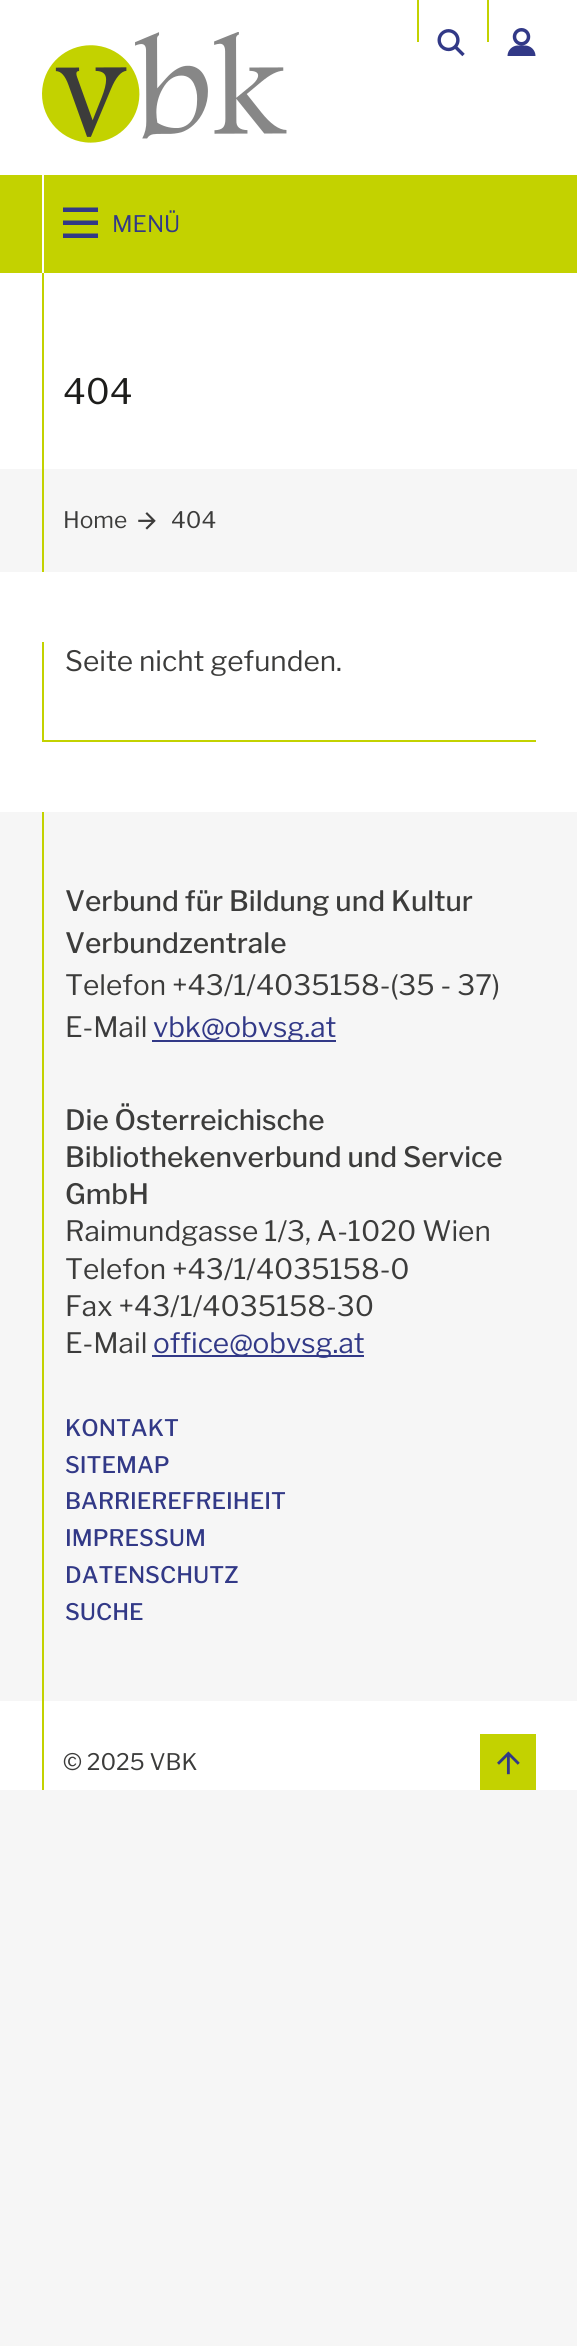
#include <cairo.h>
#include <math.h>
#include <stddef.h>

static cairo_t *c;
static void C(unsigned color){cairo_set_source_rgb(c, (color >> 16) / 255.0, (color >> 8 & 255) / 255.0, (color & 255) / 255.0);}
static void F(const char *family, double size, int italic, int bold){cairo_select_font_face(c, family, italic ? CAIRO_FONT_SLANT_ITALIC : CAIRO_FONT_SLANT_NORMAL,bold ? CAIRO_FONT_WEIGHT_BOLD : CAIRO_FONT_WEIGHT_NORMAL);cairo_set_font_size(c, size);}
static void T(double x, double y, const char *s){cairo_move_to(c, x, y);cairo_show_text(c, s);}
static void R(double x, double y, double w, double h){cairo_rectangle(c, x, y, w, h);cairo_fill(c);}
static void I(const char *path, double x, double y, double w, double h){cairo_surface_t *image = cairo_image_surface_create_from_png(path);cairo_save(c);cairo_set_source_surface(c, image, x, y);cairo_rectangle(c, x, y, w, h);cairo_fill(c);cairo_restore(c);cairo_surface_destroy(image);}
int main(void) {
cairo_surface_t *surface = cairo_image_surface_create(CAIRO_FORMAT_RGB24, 577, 2346);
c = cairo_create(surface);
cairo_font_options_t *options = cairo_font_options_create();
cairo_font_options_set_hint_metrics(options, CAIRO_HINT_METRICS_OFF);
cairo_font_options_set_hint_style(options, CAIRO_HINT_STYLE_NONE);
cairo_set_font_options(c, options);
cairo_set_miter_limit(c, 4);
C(0xf6f6f6);
cairo_paint(c);
C(0xffffff);
R(0,0,577,175);
I("1.png",42,32,245,111);
C(0xc3d200);
R(417,0,2,42);
I("2.png",437,29,28,28);
R(487,0,2,42);
I("3.png",507,28,29,28);
R(0,175,577,98);
C(0xffffff);
R(42,175,2,98);
C(0x323987);
cairo_new_path(c);
cairo_move_to(c,98,238);
cairo_line_to(c,98,233.5);
cairo_line_to(c,63,233.5);
cairo_line_to(c,63,238);
cairo_close_path(c);
cairo_move_to(c,63,225);
cairo_line_to(c,98,225);
cairo_line_to(c,98,220.5);
cairo_line_to(c,63,220.5);
cairo_close_path(c);
cairo_move_to(c,63,212);
cairo_line_to(c,98,212);
cairo_line_to(c,98,207.5);
cairo_line_to(c,63,207.5);
cairo_close_path(c);
cairo_fill(c);
F("Libre Franklin",22.75,0,0);
T(112,232,"MENÜ");
C(0xffffff);
R(0,273,577,196);
C(0xc3d200);
R(42,273,2,299);
F("Libre Franklin",35,0,0);
C(0x1d1d1b);
T(63,404,"404");
F("Libre Franklin",22.75,0,0);
C(0x3c3c3b);
T(63,528,"Home");
I("4.png",138,512,18,18);
T(171,528,"404");
C(0xffffff);
R(0,572,577,240);
C(0xc3d200);
R(42,740,494,2);
R(42,642,2,100);
F("Libre Franklin",28,0,0);
C(0x3c3c3b);
T(65,671,"Seite nicht gefunden.");
C(0xc3d200);
R(42,812,2,889);
F("Libre Franklin Medium",28,0,0);
C(0x3c3c3b);
T(65,911,"Verbund für Bildung und Kultur");
T(65,953,"Verbundzentrale");
F("Libre Franklin",28,0,0);
T(65,995,"Telefon +43/1/4035158-(35 - 37)");
T(65,1037,"E-Mail");
C(0x323987);
R(152,1040,184,2);
T(153,1037,"vbk@obvsg.at");
F("Libre Franklin Medium",28,0,0);
C(0x3c3c3b);
T(65,1130,"Die Österreichische");
T(65,1167,"Bibliothekenverbund und Service");
T(65,1204,"GmbH");
F("Libre Franklin",28,0,0);
T(65,1241,"Raimundgasse 1/3, A-1020 Wien");
T(65,1279,"Telefon +43/1/4035158-0");
T(65,1316,"Fax +43/1/4035158-30");
T(65,1353,"E-Mail");
C(0x323987);
R(152,1355,212,2);
T(153,1353,"office@obvsg.at");
F("Libre Franklin Medium",22.75,0,0);
T(65,1436,"KONTAKT");
T(65,1473,"SITEMAP");
T(65,1509,"BARRIEREFREIHEIT");
T(65,1546,"IMPRESSUM");
T(65,1583,"DATENSCHUTZ");
T(65,1620,"SUCHE");
C(0xffffff);
R(0,1701,577,89);
C(0xc3d200);
R(42,1701,2,89);
F("Libre Franklin",22.75,0,0);
C(0x3c3c3b);
T(63,1770,"© 2025 VBK");
C(0xc3d200);
R(480,1734,56,56);
I("5.png",497,1751,23,24);
cairo_surface_write_to_png(surface, "o.png");
cairo_font_options_destroy(options);
cairo_destroy(c);
cairo_surface_destroy(surface);
return 0;
}
